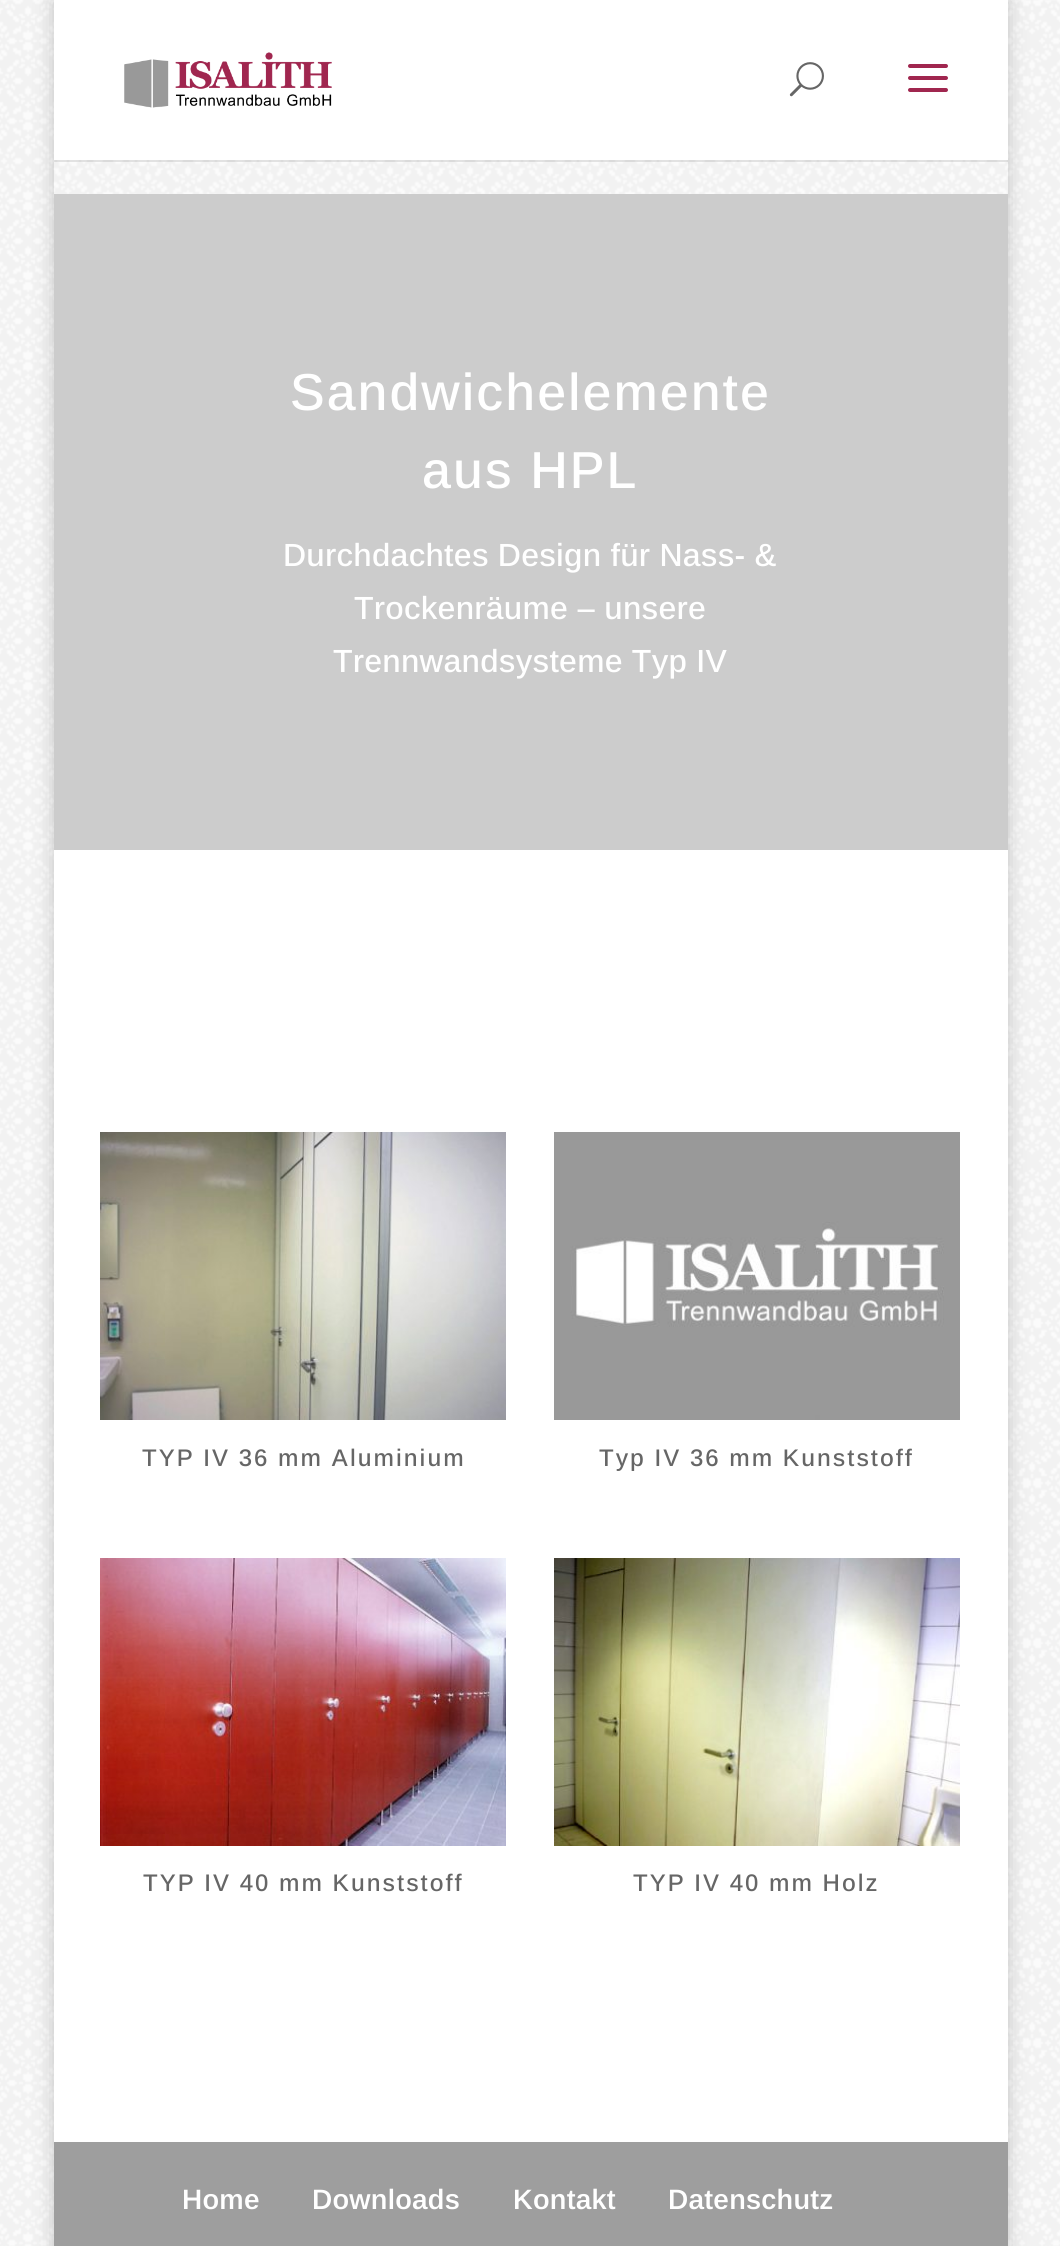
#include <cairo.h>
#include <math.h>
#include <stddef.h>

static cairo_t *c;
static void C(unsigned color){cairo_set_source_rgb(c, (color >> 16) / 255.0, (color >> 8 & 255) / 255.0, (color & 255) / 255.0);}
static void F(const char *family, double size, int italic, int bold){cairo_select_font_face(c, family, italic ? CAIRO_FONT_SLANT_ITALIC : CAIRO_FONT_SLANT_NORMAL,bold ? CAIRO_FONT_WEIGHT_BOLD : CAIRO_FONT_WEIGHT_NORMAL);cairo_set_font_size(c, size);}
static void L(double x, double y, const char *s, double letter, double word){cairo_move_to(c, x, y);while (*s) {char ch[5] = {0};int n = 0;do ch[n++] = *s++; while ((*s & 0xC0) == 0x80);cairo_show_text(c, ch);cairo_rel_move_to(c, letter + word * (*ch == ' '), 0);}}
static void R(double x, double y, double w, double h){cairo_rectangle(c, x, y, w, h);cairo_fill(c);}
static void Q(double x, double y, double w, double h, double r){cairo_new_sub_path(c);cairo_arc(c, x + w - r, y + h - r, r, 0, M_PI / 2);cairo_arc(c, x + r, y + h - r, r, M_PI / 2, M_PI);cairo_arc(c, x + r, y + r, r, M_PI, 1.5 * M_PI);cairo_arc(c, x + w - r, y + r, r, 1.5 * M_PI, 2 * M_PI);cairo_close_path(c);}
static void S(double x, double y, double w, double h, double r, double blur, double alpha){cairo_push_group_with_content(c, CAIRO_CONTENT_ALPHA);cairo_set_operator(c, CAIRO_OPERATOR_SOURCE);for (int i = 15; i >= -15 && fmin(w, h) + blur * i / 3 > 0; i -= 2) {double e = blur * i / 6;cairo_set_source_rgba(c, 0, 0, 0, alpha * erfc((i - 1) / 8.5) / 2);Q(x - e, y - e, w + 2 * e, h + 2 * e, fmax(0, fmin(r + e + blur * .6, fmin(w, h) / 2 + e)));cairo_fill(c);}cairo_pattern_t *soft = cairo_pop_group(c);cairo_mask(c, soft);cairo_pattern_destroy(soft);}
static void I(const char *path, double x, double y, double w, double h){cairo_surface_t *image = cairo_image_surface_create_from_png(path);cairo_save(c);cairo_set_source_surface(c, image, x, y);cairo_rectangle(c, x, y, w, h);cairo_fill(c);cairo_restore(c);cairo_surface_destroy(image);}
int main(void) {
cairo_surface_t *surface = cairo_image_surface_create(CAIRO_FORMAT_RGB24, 1060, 2246);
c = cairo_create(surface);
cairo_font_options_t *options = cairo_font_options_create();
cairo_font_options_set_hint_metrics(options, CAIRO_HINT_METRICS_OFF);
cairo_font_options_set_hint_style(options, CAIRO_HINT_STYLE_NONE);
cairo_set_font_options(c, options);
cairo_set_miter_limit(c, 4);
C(0xffffff);
cairo_paint(c);
I("1.png",0,0,1060,2246);
cairo_save(c);
cairo_set_fill_rule(c,CAIRO_FILL_RULE_EVEN_ODD);
cairo_new_path(c);
cairo_move_to(c,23,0);
cairo_line_to(c,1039,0);
cairo_line_to(c,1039,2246);
cairo_line_to(c,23,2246);
cairo_close_path(c);
cairo_move_to(c,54,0);
cairo_line_to(c,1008,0);
cairo_line_to(c,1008,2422);
cairo_line_to(c,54,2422);
cairo_close_path(c);
cairo_clip(c);
C(0x000000);
S(54,0,954,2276,0,10,.2);
cairo_restore(c);
cairo_set_source_rgba(c,0,0,0,0.1);
R(54,160,954,2);
C(0xffffff);
R(54,0,954,160);
I("2.png",124,52,208,56);
I("3.png",789,62,35,35);
I("4.png",908,64,40,28);
C(0xcccccc);
R(54,194,954,656);
F("Arimo Medium",52,0,0);
C(0xffffff);
L(290,410,"Sandwichelemente",2,0);
L(422,488,"aus HPL",2,0);
F("Arimo Medium",32,0,0);
L(283,566,"Durchdachtes Design für Nass- &",.25,0);
L(354,619,"Trockenräume – unsere",.25,0);
L(333,672,"Trennwandsysteme Typ IV",.25,0);
R(54,850,954,1292);
I("5.png",100,1132,406,288);
F("Arimo Medium",24,0,0);
C(0x666666);
L(142,1466,"TYP IV 36 mm Aluminium",2,0);
I("6.png",554,1132,406,288);
L(599,1466,"Typ IV 36 mm Kunststoff",2,0);
I("7.png",100,1558,406,288);
L(143,1891,"TYP IV 40 mm Kunststoff",2,0);
I("8.png",554,1558,406,288);
L(633,1891,"TYP IV 40 mm Holz",2,0);
C(0x9e9e9e);
R(54,2142,954,104);
F("Arimo SemiBold",28,0,0);
C(0xffffff);
L(182,2209,"Home",.25,0);
L(312,2209,"Downloads",.25,0);
L(513,2209,"Kontakt",.25,0);
L(668,2209,"Datenschutz",.25,0);
cairo_surface_write_to_png(surface, "o.png");
cairo_font_options_destroy(options);
cairo_destroy(c);
cairo_surface_destroy(surface);
return 0;
}
